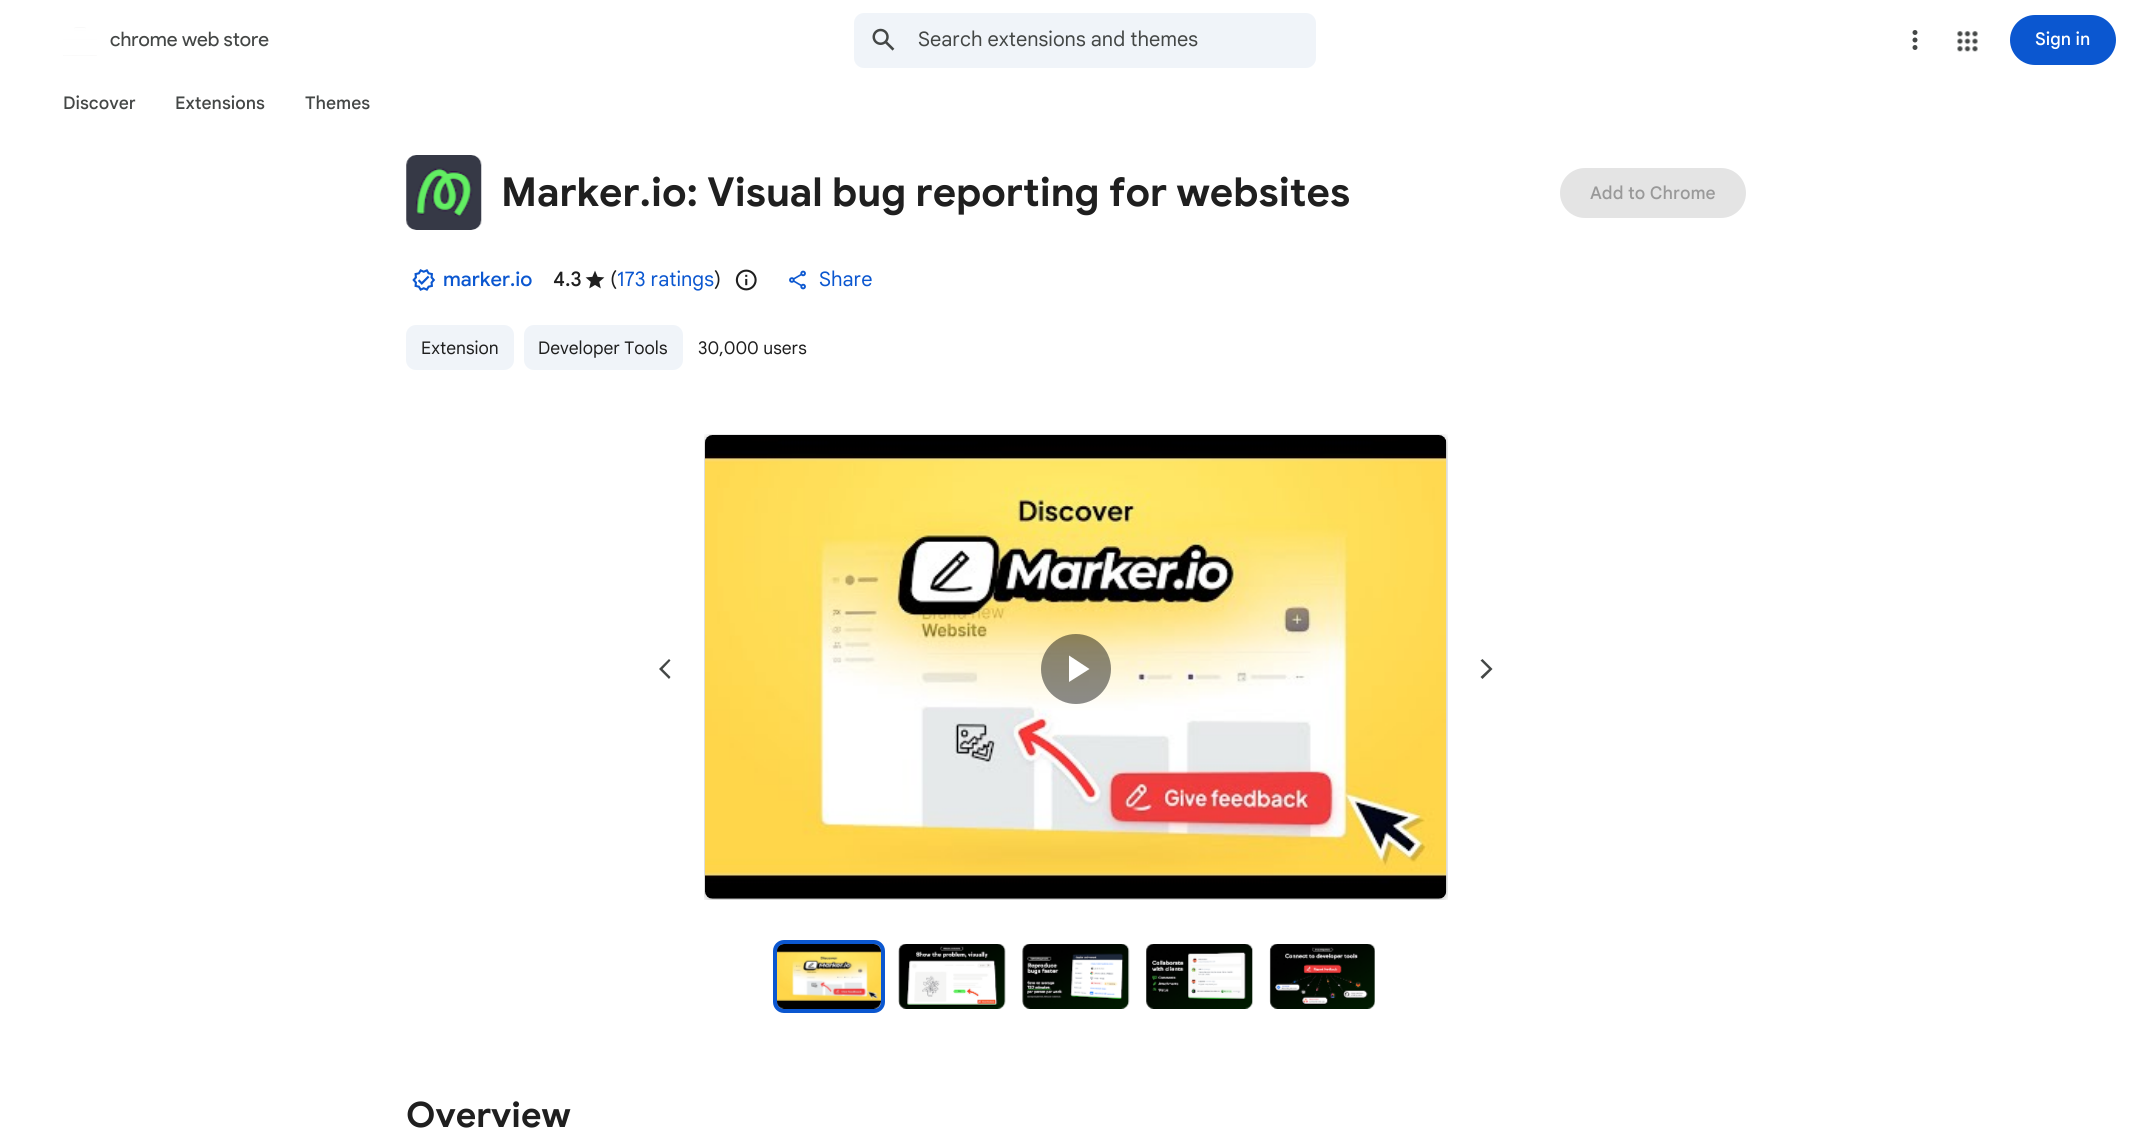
#include <cairo.h>
#include <math.h>
#include <stddef.h>

static cairo_t *c;
static void C(unsigned color){cairo_set_source_rgb(c, (color >> 16) / 255.0, (color >> 8 & 255) / 255.0, (color & 255) / 255.0);}
static void F(const char *family, double size, int italic, int bold){cairo_select_font_face(c, family, italic ? CAIRO_FONT_SLANT_ITALIC : CAIRO_FONT_SLANT_NORMAL,bold ? CAIRO_FONT_WEIGHT_BOLD : CAIRO_FONT_WEIGHT_NORMAL);cairo_set_font_size(c, size);}
static void T(double x, double y, const char *s){cairo_move_to(c, x, y);cairo_show_text(c, s);}
static void Q(double x, double y, double w, double h, double r){cairo_new_sub_path(c);cairo_arc(c, x + w - r, y + h - r, r, 0, M_PI / 2);cairo_arc(c, x + r, y + h - r, r, M_PI / 2, M_PI);cairo_arc(c, x + r, y + r, r, M_PI, 1.5 * M_PI);cairo_arc(c, x + w - r, y + r, r, 1.5 * M_PI, 2 * M_PI);cairo_close_path(c);}
static void I(const char *path, double x, double y, double w, double h){cairo_surface_t *image = cairo_image_surface_create_from_png(path);cairo_save(c);cairo_set_source_surface(c, image, x, y);cairo_rectangle(c, x, y, w, h);cairo_fill(c);cairo_restore(c);cairo_surface_destroy(image);}
int main(void) {
cairo_surface_t *surface = cairo_image_surface_create(CAIRO_FORMAT_RGB24, 2151, 1146);
c = cairo_create(surface);
cairo_font_options_t *options = cairo_font_options_create();
cairo_font_options_set_hint_metrics(options, CAIRO_HINT_METRICS_OFF);
cairo_font_options_set_hint_style(options, CAIRO_HINT_STYLE_NONE);
cairo_set_font_options(c, options);
cairo_set_miter_limit(c, 4);
C(0xffffff);
cairo_paint(c);
I("1.png",63,27,34,29);
F("Product Sans",20,0,0);
C(0x444746);
T(110,46,"chrome web store");
C(0xf0f4f9);
Q(854,13,462,55,10);
cairo_fill(c);
I("2.png",872,28,23,23);
F("Google Sans",20,0,0);
C(0x444746);
T(918,46,"Search extensions and themes");
I("3.png",1912,30,6,20);
I("4.png",1957,31,21,21);
C(0x0b57d0);
Q(2010,15,106,50,25);
cairo_fill(c);
F("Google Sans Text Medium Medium",17.5,0,0);
C(0xffffff);
T(2035,45,"Sign in");
C(0x444746);
T(63,109,"Discover");
T(175,109,"Extensions");
T(305,109,"Themes");
I("5.png",406,155,76,75);
F("Google Sans",40,0,1);
C(0x1f1f1f);
T(501,206,"Marker.io: Visual bug reporting for websites");
C(0xe4e4e4);
Q(1560,168,186,50,25);
cairo_fill(c);
F("Google Sans Text Medium Medium",17.5,0,0);
C(0x999999);
T(1590,199,"Add to Chrome");
I("6.png",412,269,24,22);
F("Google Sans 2 Medium",20,0,0);
C(0x0b57d0);
T(443,286,"marker.io");
F("Google Sans Medium",20,0,0);
C(0x1f1f1f);
T(553,286,"4.3");
I("7.png",585,270,20,19);
F("Google Sans",20,0,0);
T(610,286,"(");
C(0x0b57d0);
T(617,286,"173 ratings");
C(0x1f1f1f);
T(714,286,")");
I("8.png",735,269,22,22);
I("9.png",789,270,17,20);
F("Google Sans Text",20,0,0);
C(0x0b57d0);
T(819,286,"Share");
C(0xf0f4f9);
Q(406,325,108,45,10);
cairo_fill(c);
F("Google Sans",17.5,0,0);
C(0x1f1f1f);
T(421,354,"Extension");
C(0xf0f4f9);
Q(524,325,159,45,10);
cairo_fill(c);
C(0x1f1f1f);
T(538,354,"Developer Tools");
T(698,354,"30,000 users");
C(0x444746);
cairo_new_path(c);
cairo_move_to(c,670.5,660.5);
cairo_line_to(c,669,659);
cairo_line_to(c,659,669);
cairo_line_to(c,669,679);
cairo_line_to(c,670.5,677);
cairo_line_to(c,662.5,669);
cairo_fill(c);
I("10.png",704,434,744,466);
cairo_set_source_rgba(c,0,0,0,0.45);
cairo_arc(c,1076,669,35,0,2 * M_PI);
cairo_fill(c);
C(0xffffff);
cairo_new_path(c);
cairo_move_to(c,1069,655.5);
cairo_line_to(c,1069,682);
cairo_line_to(c,1089.5,669);
cairo_close_path(c);
cairo_fill(c);
C(0x444746);
cairo_new_path(c);
cairo_move_to(c,1480.5,677);
cairo_line_to(c,1482.5,679);
cairo_line_to(c,1492.5,669);
cairo_line_to(c,1482.5,659);
cairo_line_to(c,1480.5,660.5);
cairo_line_to(c,1489,669);
cairo_fill(c);
I("11.png",777,944,104,65);
Q(775,942,108,69,9);
C(0x0b57d0);
cairo_set_line_width(c,4);
cairo_stroke(c);
I("12.png",898,944,108,65);
I("13.png",1022,944,108,65);
I("14.png",1146,944,107,65);
I("15.png",1269,944,106,65);
F("Google Sans",35,0,1);
C(0x1f1f1f);
T(406,1127,"Overview");
cairo_surface_write_to_png(surface, "o.png");
cairo_font_options_destroy(options);
cairo_destroy(c);
cairo_surface_destroy(surface);
return 0;
}
